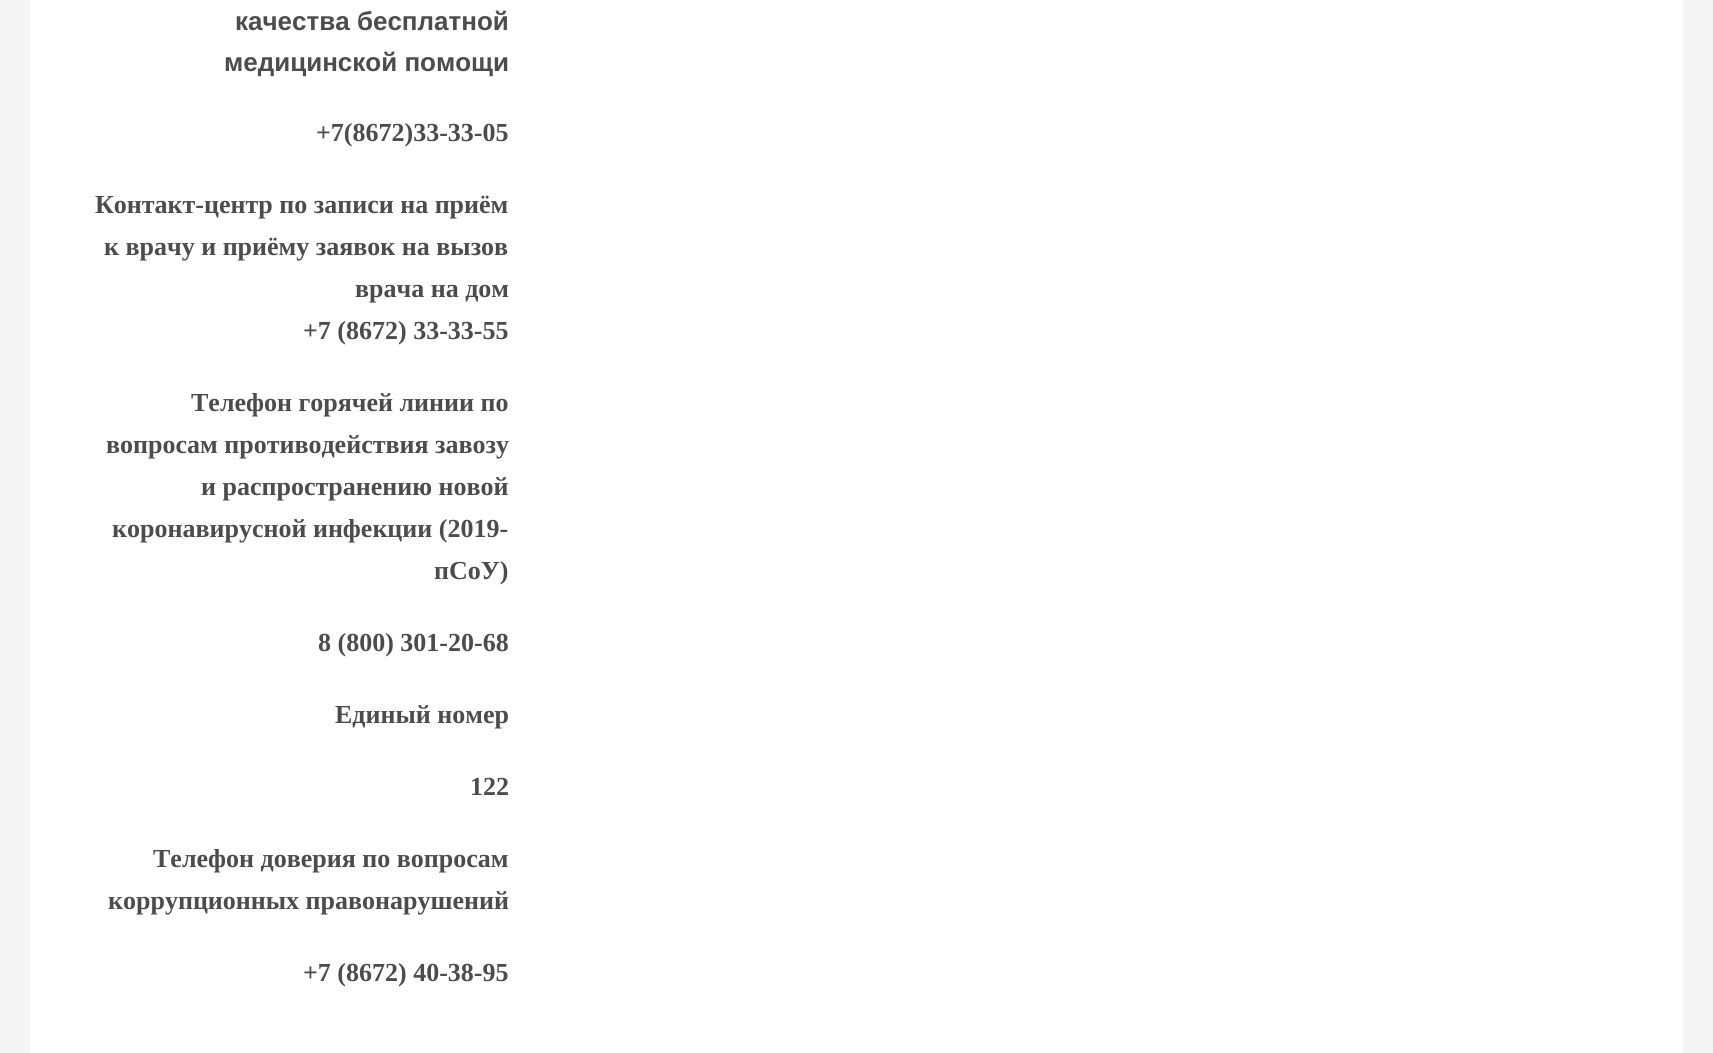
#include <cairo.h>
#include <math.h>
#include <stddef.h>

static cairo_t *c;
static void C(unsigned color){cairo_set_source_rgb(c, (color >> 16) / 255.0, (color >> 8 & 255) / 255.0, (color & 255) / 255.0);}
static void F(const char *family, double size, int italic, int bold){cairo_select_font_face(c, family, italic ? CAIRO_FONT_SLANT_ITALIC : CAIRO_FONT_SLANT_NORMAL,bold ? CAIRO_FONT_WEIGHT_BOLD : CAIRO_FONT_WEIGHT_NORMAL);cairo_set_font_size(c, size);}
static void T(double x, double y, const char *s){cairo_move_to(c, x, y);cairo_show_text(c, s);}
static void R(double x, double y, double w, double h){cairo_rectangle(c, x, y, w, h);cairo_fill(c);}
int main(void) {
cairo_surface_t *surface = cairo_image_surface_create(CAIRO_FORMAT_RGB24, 1713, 1053);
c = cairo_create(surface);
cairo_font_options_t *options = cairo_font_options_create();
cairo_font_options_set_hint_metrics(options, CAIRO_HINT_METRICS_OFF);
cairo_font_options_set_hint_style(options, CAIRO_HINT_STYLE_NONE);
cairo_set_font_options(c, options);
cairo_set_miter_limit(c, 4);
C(0xf5f5f5);
cairo_paint(c);
C(0xffffff);
R(30,0,1653,1053);
F("Liberation Sans",26,0,1);
C(0x4c4c4c);
T(235,30,"качества бесплатной");
T(224,71,"медицинской помощи");
F("Liberation Serif",26,0,1);
T(316,141,"+7(8672)33-33-05");
T(95,213,"Контакт-центр по записи на приём");
T(104,255,"к врачу и приёму заявок на вызов");
T(355,297,"врача на дом");
T(303,339,"+7 (8672) 33-33-55");
T(191,411,"Телефон горячей линии по");
T(106,453,"вопросам противодействия завозу");
T(201,495,"и распространению новой");
T(112,537,"коронавирусной инфекции (2019-");
T(434,579,"пСоУ)");
T(318,651,"8 (800) 301-20-68");
T(335,723,"Единый номер");
T(470,795,"122");
T(153,867,"Телефон доверия по вопросам");
T(108,909,"коррупционных правонарушений");
T(303,981,"+7 (8672) 40-38-95");
cairo_surface_write_to_png(surface, "o.png");
cairo_font_options_destroy(options);
cairo_destroy(c);
cairo_surface_destroy(surface);
return 0;
}
